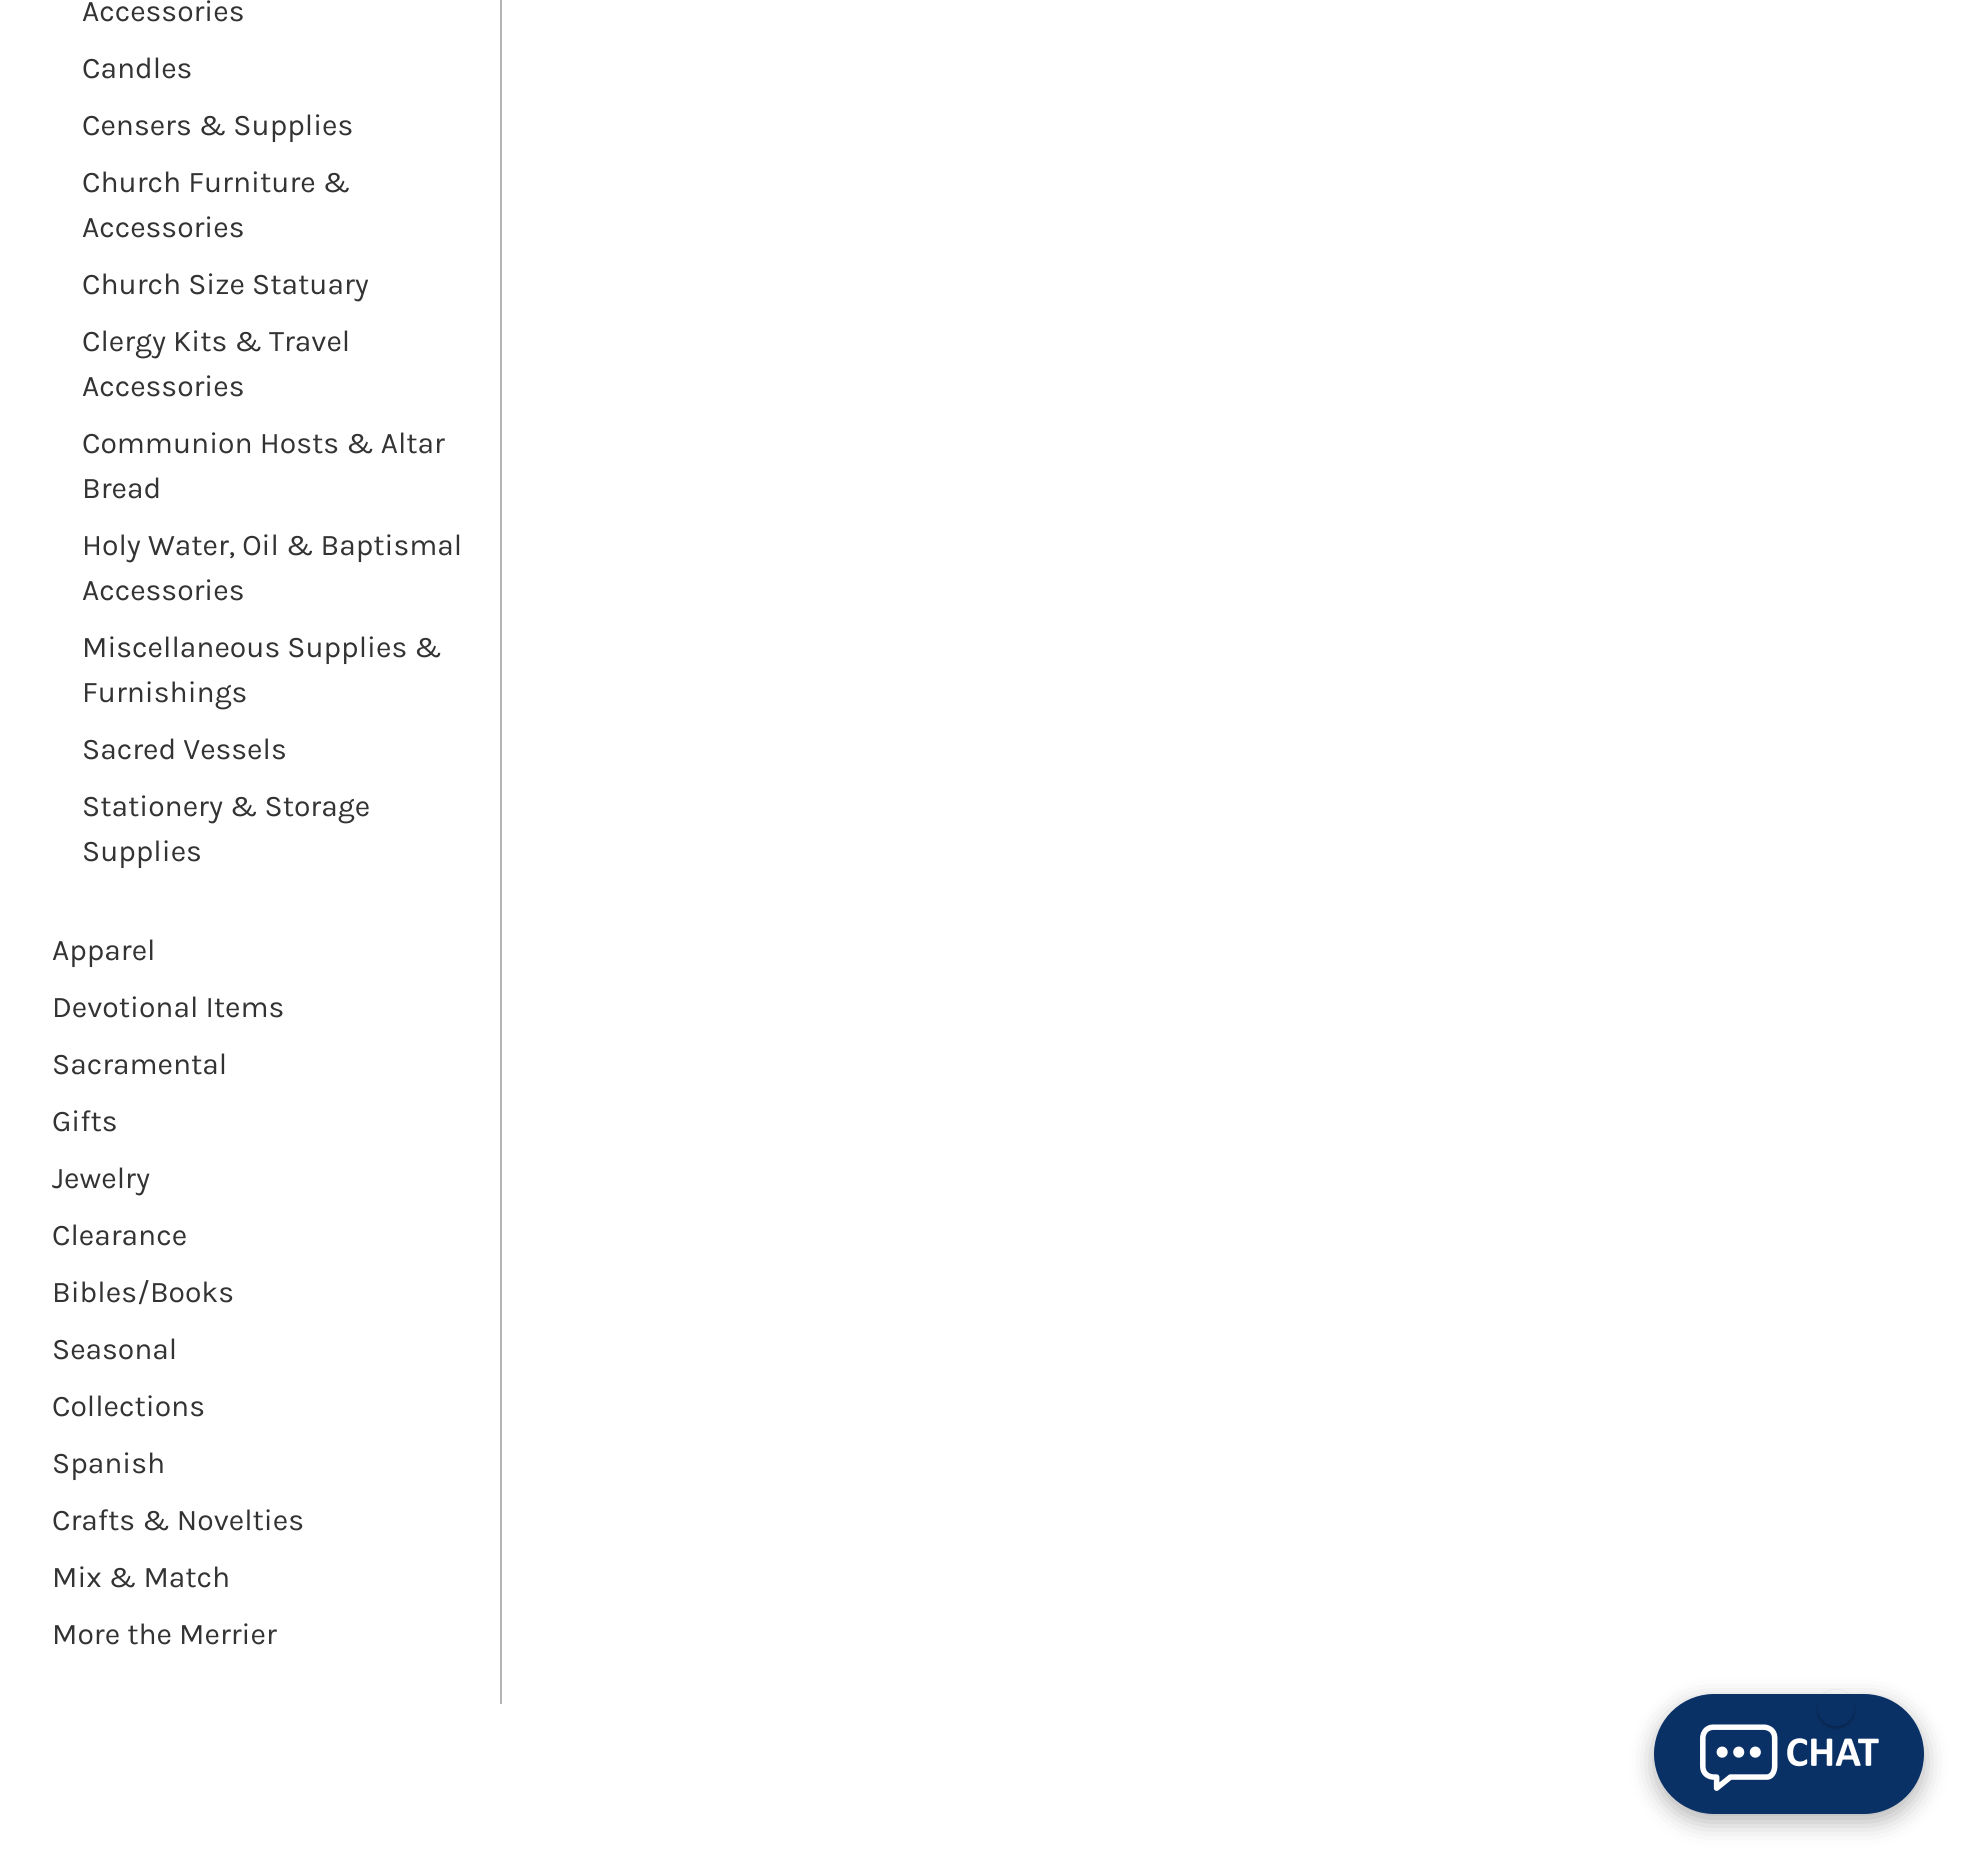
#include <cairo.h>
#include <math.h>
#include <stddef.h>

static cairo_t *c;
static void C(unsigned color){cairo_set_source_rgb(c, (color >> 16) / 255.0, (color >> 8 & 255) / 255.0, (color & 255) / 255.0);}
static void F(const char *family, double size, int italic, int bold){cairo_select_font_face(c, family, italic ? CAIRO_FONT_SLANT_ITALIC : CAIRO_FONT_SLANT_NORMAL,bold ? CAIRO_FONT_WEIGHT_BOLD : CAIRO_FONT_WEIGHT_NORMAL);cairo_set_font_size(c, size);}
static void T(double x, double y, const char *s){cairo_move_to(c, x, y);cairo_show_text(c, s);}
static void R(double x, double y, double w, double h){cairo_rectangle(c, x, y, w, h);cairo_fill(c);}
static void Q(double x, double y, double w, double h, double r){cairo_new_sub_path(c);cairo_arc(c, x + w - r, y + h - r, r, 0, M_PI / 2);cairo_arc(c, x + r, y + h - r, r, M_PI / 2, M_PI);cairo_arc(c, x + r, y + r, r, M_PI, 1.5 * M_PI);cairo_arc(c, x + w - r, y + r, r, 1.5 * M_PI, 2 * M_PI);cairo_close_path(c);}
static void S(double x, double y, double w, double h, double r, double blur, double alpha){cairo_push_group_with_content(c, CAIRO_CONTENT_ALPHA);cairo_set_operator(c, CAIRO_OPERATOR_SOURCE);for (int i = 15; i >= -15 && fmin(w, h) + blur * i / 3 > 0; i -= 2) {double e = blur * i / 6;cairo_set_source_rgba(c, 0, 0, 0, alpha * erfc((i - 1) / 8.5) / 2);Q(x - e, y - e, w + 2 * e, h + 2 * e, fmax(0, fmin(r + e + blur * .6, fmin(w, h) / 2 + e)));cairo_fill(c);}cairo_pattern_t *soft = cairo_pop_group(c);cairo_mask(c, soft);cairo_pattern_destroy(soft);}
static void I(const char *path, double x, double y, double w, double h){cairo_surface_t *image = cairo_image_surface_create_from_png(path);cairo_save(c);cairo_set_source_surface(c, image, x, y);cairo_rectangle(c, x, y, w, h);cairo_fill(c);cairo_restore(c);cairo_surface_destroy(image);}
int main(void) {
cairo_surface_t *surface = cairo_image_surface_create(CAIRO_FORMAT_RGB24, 1963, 1856);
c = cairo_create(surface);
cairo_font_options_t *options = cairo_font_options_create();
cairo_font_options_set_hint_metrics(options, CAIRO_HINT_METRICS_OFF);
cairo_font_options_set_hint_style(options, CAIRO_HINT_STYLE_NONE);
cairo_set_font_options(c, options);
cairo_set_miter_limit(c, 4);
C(0xffffff);
cairo_paint(c);
C(0xb5b5b5);
R(500,0,2,1704);
F("Karla",30,0,0);
C(0x333333);
T(82,21,"Accessories");
T(82,78,"Candles");
T(82,135,"Censers & Supplies");
T(82,192,"Church Furniture &");
T(82,237,"Accessories");
T(82,294,"Church Size Statuary");
T(82,351,"Clergy Kits & Travel");
T(82,396,"Accessories");
T(82,453,"Communion Hosts & Altar");
T(82,498,"Bread");
T(82,555,"Holy Water, Oil & Baptismal");
T(82,600,"Accessories");
T(82,657,"Miscellaneous Supplies &");
T(82,702,"Furnishings");
T(82,759,"Sacred Vessels");
T(82,816,"Stationery & Storage");
T(82,861,"Supplies");
T(52,960,"Apparel");
T(52,1017,"Devotional Items");
T(52,1074,"Sacramental");
T(52,1131,"Gifts");
T(52,1188,"Jewelry");
T(52,1245,"Clearance");
T(52,1302,"Bibles/Books");
T(52,1359,"Seasonal");
T(52,1416,"Collections");
T(52,1473,"Spanish");
T(52,1530,"Crafts & Novelties");
T(52,1587,"Mix & Match");
T(52,1644,"More the Merrier");
C(0x000000);
S(1654,1702,270,120,60,12,.3);
C(0x0a3166);
Q(1654,1694,270,120,60);
cairo_fill(c);
I("1.png",1690,1704,200,100);
cairo_save(c);
cairo_set_fill_rule(c,CAIRO_FILL_RULE_EVEN_ODD);
cairo_new_path(c);
cairo_move_to(c,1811,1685);
cairo_line_to(c,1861,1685);
cairo_line_to(c,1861,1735);
cairo_line_to(c,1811,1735);
cairo_close_path(c);
cairo_move_to(c,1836,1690);
cairo_curve_to(c,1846,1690,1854,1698,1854,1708);
cairo_curve_to(c,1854,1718,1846,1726,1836,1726);
cairo_curve_to(c,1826,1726,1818,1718,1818,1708);
cairo_curve_to(c,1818,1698,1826,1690,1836,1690);
cairo_close_path(c);
cairo_clip(c);
C(0x000000);
S(1818,1692,36,36,18,2,.3);
cairo_restore(c);
cairo_surface_write_to_png(surface, "o.png");
cairo_font_options_destroy(options);
cairo_destroy(c);
cairo_surface_destroy(surface);
return 0;
}
